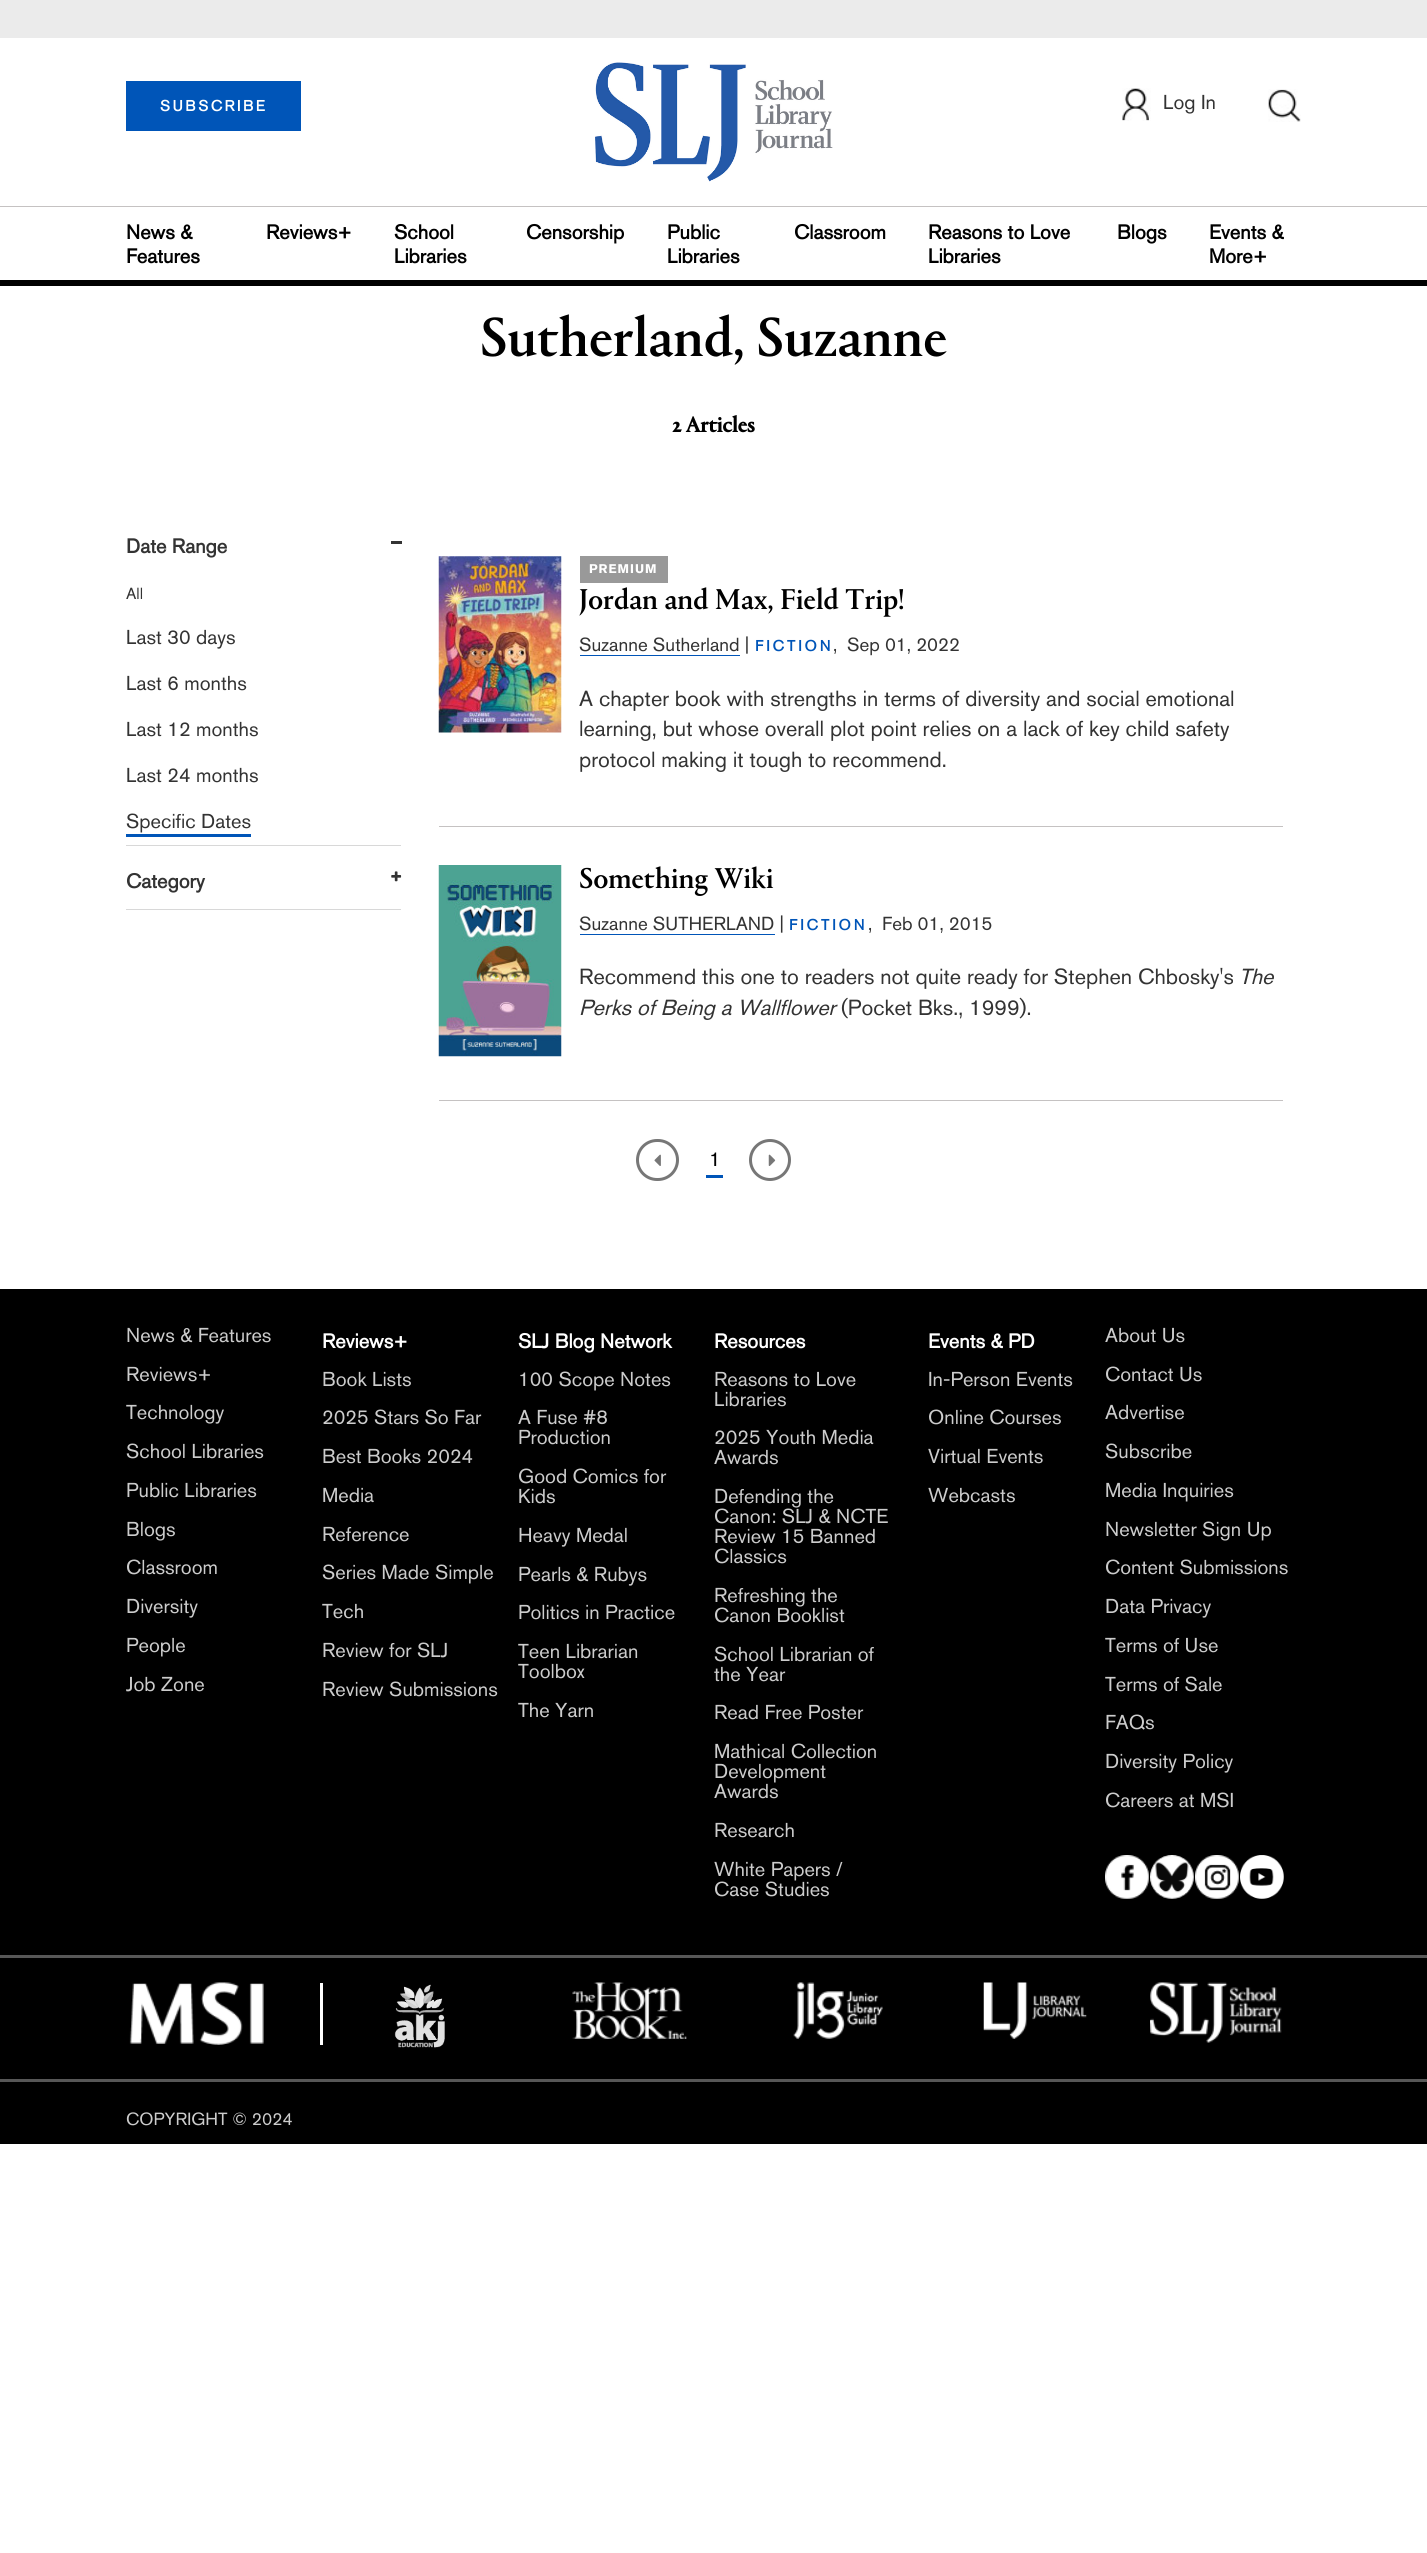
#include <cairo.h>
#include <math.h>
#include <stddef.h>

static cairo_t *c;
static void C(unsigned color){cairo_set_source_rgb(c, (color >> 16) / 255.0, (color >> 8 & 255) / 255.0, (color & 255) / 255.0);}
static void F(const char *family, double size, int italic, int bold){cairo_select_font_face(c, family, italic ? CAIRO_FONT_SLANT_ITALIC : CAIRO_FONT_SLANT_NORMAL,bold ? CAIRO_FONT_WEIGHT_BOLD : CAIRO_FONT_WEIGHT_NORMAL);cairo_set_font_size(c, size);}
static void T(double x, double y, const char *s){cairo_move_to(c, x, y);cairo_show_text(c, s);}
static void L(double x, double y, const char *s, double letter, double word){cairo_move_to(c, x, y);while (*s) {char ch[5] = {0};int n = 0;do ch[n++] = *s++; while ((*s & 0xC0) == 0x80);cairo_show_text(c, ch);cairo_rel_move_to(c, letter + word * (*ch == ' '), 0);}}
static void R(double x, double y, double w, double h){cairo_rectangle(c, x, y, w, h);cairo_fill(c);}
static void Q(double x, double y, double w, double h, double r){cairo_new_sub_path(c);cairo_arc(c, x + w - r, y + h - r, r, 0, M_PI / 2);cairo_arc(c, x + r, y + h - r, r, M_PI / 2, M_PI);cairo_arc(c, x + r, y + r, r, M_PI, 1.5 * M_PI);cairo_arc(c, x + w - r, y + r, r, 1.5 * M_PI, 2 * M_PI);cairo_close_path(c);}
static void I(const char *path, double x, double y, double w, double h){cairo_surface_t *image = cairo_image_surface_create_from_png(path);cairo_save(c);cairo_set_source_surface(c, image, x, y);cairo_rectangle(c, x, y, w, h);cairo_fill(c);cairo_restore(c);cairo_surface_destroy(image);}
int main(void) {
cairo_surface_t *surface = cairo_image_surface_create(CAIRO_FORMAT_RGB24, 1427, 2553);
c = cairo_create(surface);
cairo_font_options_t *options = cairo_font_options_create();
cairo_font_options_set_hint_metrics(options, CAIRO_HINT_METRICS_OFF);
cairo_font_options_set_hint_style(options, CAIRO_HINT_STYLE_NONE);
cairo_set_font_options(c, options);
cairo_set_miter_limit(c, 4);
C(0xffffff);
cairo_paint(c);
C(0xebebeb);
R(0,0,1427,38);
C(0x0055b8);
R(126,81,175,50);
F("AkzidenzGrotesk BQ",15,0,1);
C(0xffffff);
L(160,111,"SUBSCRIBE",2.5,0);
I("1.png",595,62,238,120);
I("2.png",1122,88,29,33);
F("AkzidenzGrotesk BQ Medium",20,0,0);
C(0x333333);
T(1163,109,"Log In");
I("3.png",1268,89,33,33);
C(0xc5c2c2);
R(0,206,1427,1);
F("AkzidenzGrotesk BQ",20,0,1);
C(0x000000);
T(126,239,"News &");
T(126,263,"Features");
T(266,239,"Reviews+");
T(394,239,"School");
T(394,263,"Libraries");
T(526,239,"Censorship");
T(667,239,"Public");
T(667,263,"Libraries");
T(794,239,"Classroom");
T(928,239,"Reasons to Love");
T(928,263,"Libraries");
T(1117,239,"Blogs");
T(1209,239,"Events &");
T(1209,263,"More+");
R(0,280,1427,6);
F("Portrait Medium",57.5,0,0);
T(480,356,"Sutherland, Suzanne");
F("Portrait",22.5,0,1);
T(672,432,"2 Articles");
C(0xd8d8d8);
R(126,845,275,1);
F("AkzidenzGrotesk BQ",20,0,1);
C(0x333333);
T(126,553,"Date Range");
R(391,541,11,3);
F("AkzidenzGrotesk BQ Medium",16,0,0);
T(126,599,"All");
F("AkzidenzGrotesk BQ Medium",20,0,0);
T(126,644,"Last 30 days");
T(126,690,"Last 6 months");
T(126,736,"Last 12 months");
T(126,782,"Last 24 months");
T(126,828,"Specific Dates");
C(0x0055b8);
R(126,834,125,3);
C(0xd8d8d8);
R(126,909,275,1);
F("AkzidenzGrotesk BQ",20,0,1);
C(0x333333);
T(126,888,"Category");
I("4.png",391,871,11,11);
I("5.png",438,556,124,177);
C(0x999999);
R(580,556,88,27);
F("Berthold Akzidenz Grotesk",12.5,0,1);
C(0xffffff);
L(589,573,"PREMIUM",1,0);
F("Portrait Medium",30,0,0);
C(0x000000);
T(579,609,"Jordan and Max, Field Trip!");
F("AkzidenzGrotesk BQ Medium",18.75,0,0);
C(0x333333);
T(579,651,"Suzanne Sutherland |");
C(0x0055b8);
R(580,655,160,1);
F("AkzidenzGrotesk BQ",15,0,1);
L(755,651,"FICTION",3,0);
F("AkzidenzGrotesk BQ Medium",18.75,0,0);
C(0x333333);
T(833,651,",");
T(847,651,"Sep 01, 2022");
F("AkzidenzGrotesk BQ Medium",21.7,0,0);
T(579,706,"A chapter book with strengths in terms of diversity and social emotional");
T(579,736,"learning, but whose overall plot point relies on a lack of key child safety");
T(579,767,"protocol making it tough to recommend.");
C(0xc5c2c2);
R(439,826,844,1);
I("6.png",438,865,124,192);
F("Portrait Medium",30,0,0);
C(0x000000);
T(579,888,"Something Wiki");
F("AkzidenzGrotesk BQ Medium",18.75,0,0);
C(0x333333);
T(579,930,"Suzanne SUTHERLAND |");
C(0x0055b8);
R(580,934,195,1);
F("AkzidenzGrotesk BQ",15,0,1);
L(789,930,"FICTION",3,0);
F("AkzidenzGrotesk BQ Medium",18.75,0,0);
C(0x333333);
T(868,930,",");
T(882,930,"Feb 01, 2015");
F("AkzidenzGrotesk BQ Medium",21.7,0,0);
T(579,984,"Recommend this one to readers not quite ready for Stephen Chbosky's");
F("AkzidenzGrotesk BQ Medium",21.7,1,0);
T(1239,984,"The");
T(579,1015,"Perks of Being a Wallflower");
F("AkzidenzGrotesk BQ Medium",21.7,0,0);
T(841,1015,"(Pocket Bks., 1999).");
C(0xc5c2c2);
R(439,1100,844,1);
Q(637.5,1140.5,40,39,19.5);
C(0x777777);
cairo_set_line_width(c,3);
cairo_stroke(c);
I("7.png",654,1154,7,12);
C(0x0055b8);
R(706,1175,17,3);
F("AkzidenzGrotesk BQ Medium",20,0,0);
C(0x000000);
T(709,1166,"1");
cairo_new_path(c);
cairo_arc(c,770,1160,19.5,0,2 * M_PI);
C(0x777777);
cairo_stroke(c);
I("8.png",768,1154,8,12);
C(0x000000);
R(0,1289,1427,855);
C(0xcccccc);
T(126,1342,"News & Features");
T(126,1381,"Reviews+");
T(126,1419,"Technology");
T(126,1458,"School Libraries");
T(126,1497,"Public Libraries");
T(126,1536,"Blogs");
T(126,1574,"Classroom");
T(126,1613,"Diversity");
T(126,1652,"People");
T(126,1691,"Job Zone");
F("AkzidenzGrotesk BQ",20,0,1);
C(0xffffff);
T(322,1348,"Reviews+");
F("AkzidenzGrotesk BQ Medium",20,0,0);
C(0xcccccc);
T(322,1386,"Book Lists");
T(322,1424,"2025 Stars So Far");
T(322,1463,"Best Books 2024");
T(322,1502,"Media");
T(322,1541,"Reference");
T(322,1579,"Series Made Simple");
T(322,1618,"Tech");
T(322,1657,"Review for SLJ");
T(322,1696,"Review Submissions");
F("AkzidenzGrotesk BQ",20,0,1);
C(0xffffff);
T(518,1348,"SLJ Blog Network");
F("AkzidenzGrotesk BQ Medium",20,0,0);
C(0xcccccc);
T(518,1386,"100 Scope Notes");
T(518,1424,"A Fuse #8");
T(518,1444,"Production");
T(518,1483,"Good Comics for");
T(518,1503,"Kids");
T(518,1542,"Heavy Medal");
T(518,1581,"Pearls & Rubys");
T(518,1619,"Politics in Practice");
T(518,1658,"Teen Librarian");
T(518,1678,"Toolbox");
T(518,1717,"The Yarn");
F("AkzidenzGrotesk BQ",20,0,1);
C(0xffffff);
T(714,1348,"Resources");
F("AkzidenzGrotesk BQ Medium",20,0,0);
C(0xcccccc);
T(714,1386,"Reasons to Love");
T(714,1406,"Libraries");
T(714,1444,"2025 Youth Media");
T(714,1464,"Awards");
T(714,1503,"Defending the");
T(714,1523,"Canon: SLJ & NCTE");
T(714,1543,"Review 15 Banned");
T(714,1563,"Classics");
T(714,1602,"Refreshing the");
T(714,1622,"Canon Booklist");
T(714,1661,"School Librarian of");
T(714,1681,"the Year");
T(714,1719,"Read Free Poster");
T(714,1758,"Mathical Collection");
T(714,1778,"Development");
T(714,1798,"Awards");
T(714,1837,"Research");
T(714,1876,"White Papers /");
T(714,1896,"Case Studies");
F("AkzidenzGrotesk BQ",20,0,1);
C(0xffffff);
T(928,1348,"Events & PD");
F("AkzidenzGrotesk BQ Medium",20,0,0);
C(0xcccccc);
T(928,1386,"In-Person Events");
T(928,1424,"Online Courses");
T(928,1463,"Virtual Events");
T(928,1502,"Webcasts");
T(1105,1342,"About Us");
T(1105,1381,"Contact Us");
T(1105,1419,"Advertise");
T(1105,1458,"Subscribe");
T(1105,1497,"Media Inquiries");
T(1105,1536,"Newsletter Sign Up");
T(1105,1574,"Content Submissions");
T(1105,1613,"Data Privacy");
T(1105,1652,"Terms of Use");
T(1105,1691,"Terms of Sale");
T(1105,1729,"FAQs");
T(1105,1768,"Diversity Policy");
T(1105,1807,"Careers at MSI");
I("9.png",1105,1855,44,44);
I("10.png",1150,1855,44,44);
I("11.png",1195,1855,44,44);
I("12.png",1240,1855,44,44);
C(0x575757);
R(0,1955,1427,3);
C(0xffffff);
R(320,1983,3,62);
I("13.png",129,1982,135,63);
I("14.png",394,1984,51,64);
I("15.png",572,1982,115,57);
I("16.png",793,1982,90,57);
I("17.png",983,1982,104,57);
I("18.png",1150,1982,132,61);
C(0x575757);
R(0,2079,1427,3);
F("AkzidenzGrotesk BQ Medium",17.5,0,0);
C(0xcccccc);
T(126,2125,"COPYRIGHT © 2024");
cairo_surface_write_to_png(surface, "o.png");
cairo_font_options_destroy(options);
cairo_destroy(c);
cairo_surface_destroy(surface);
return 0;
}
